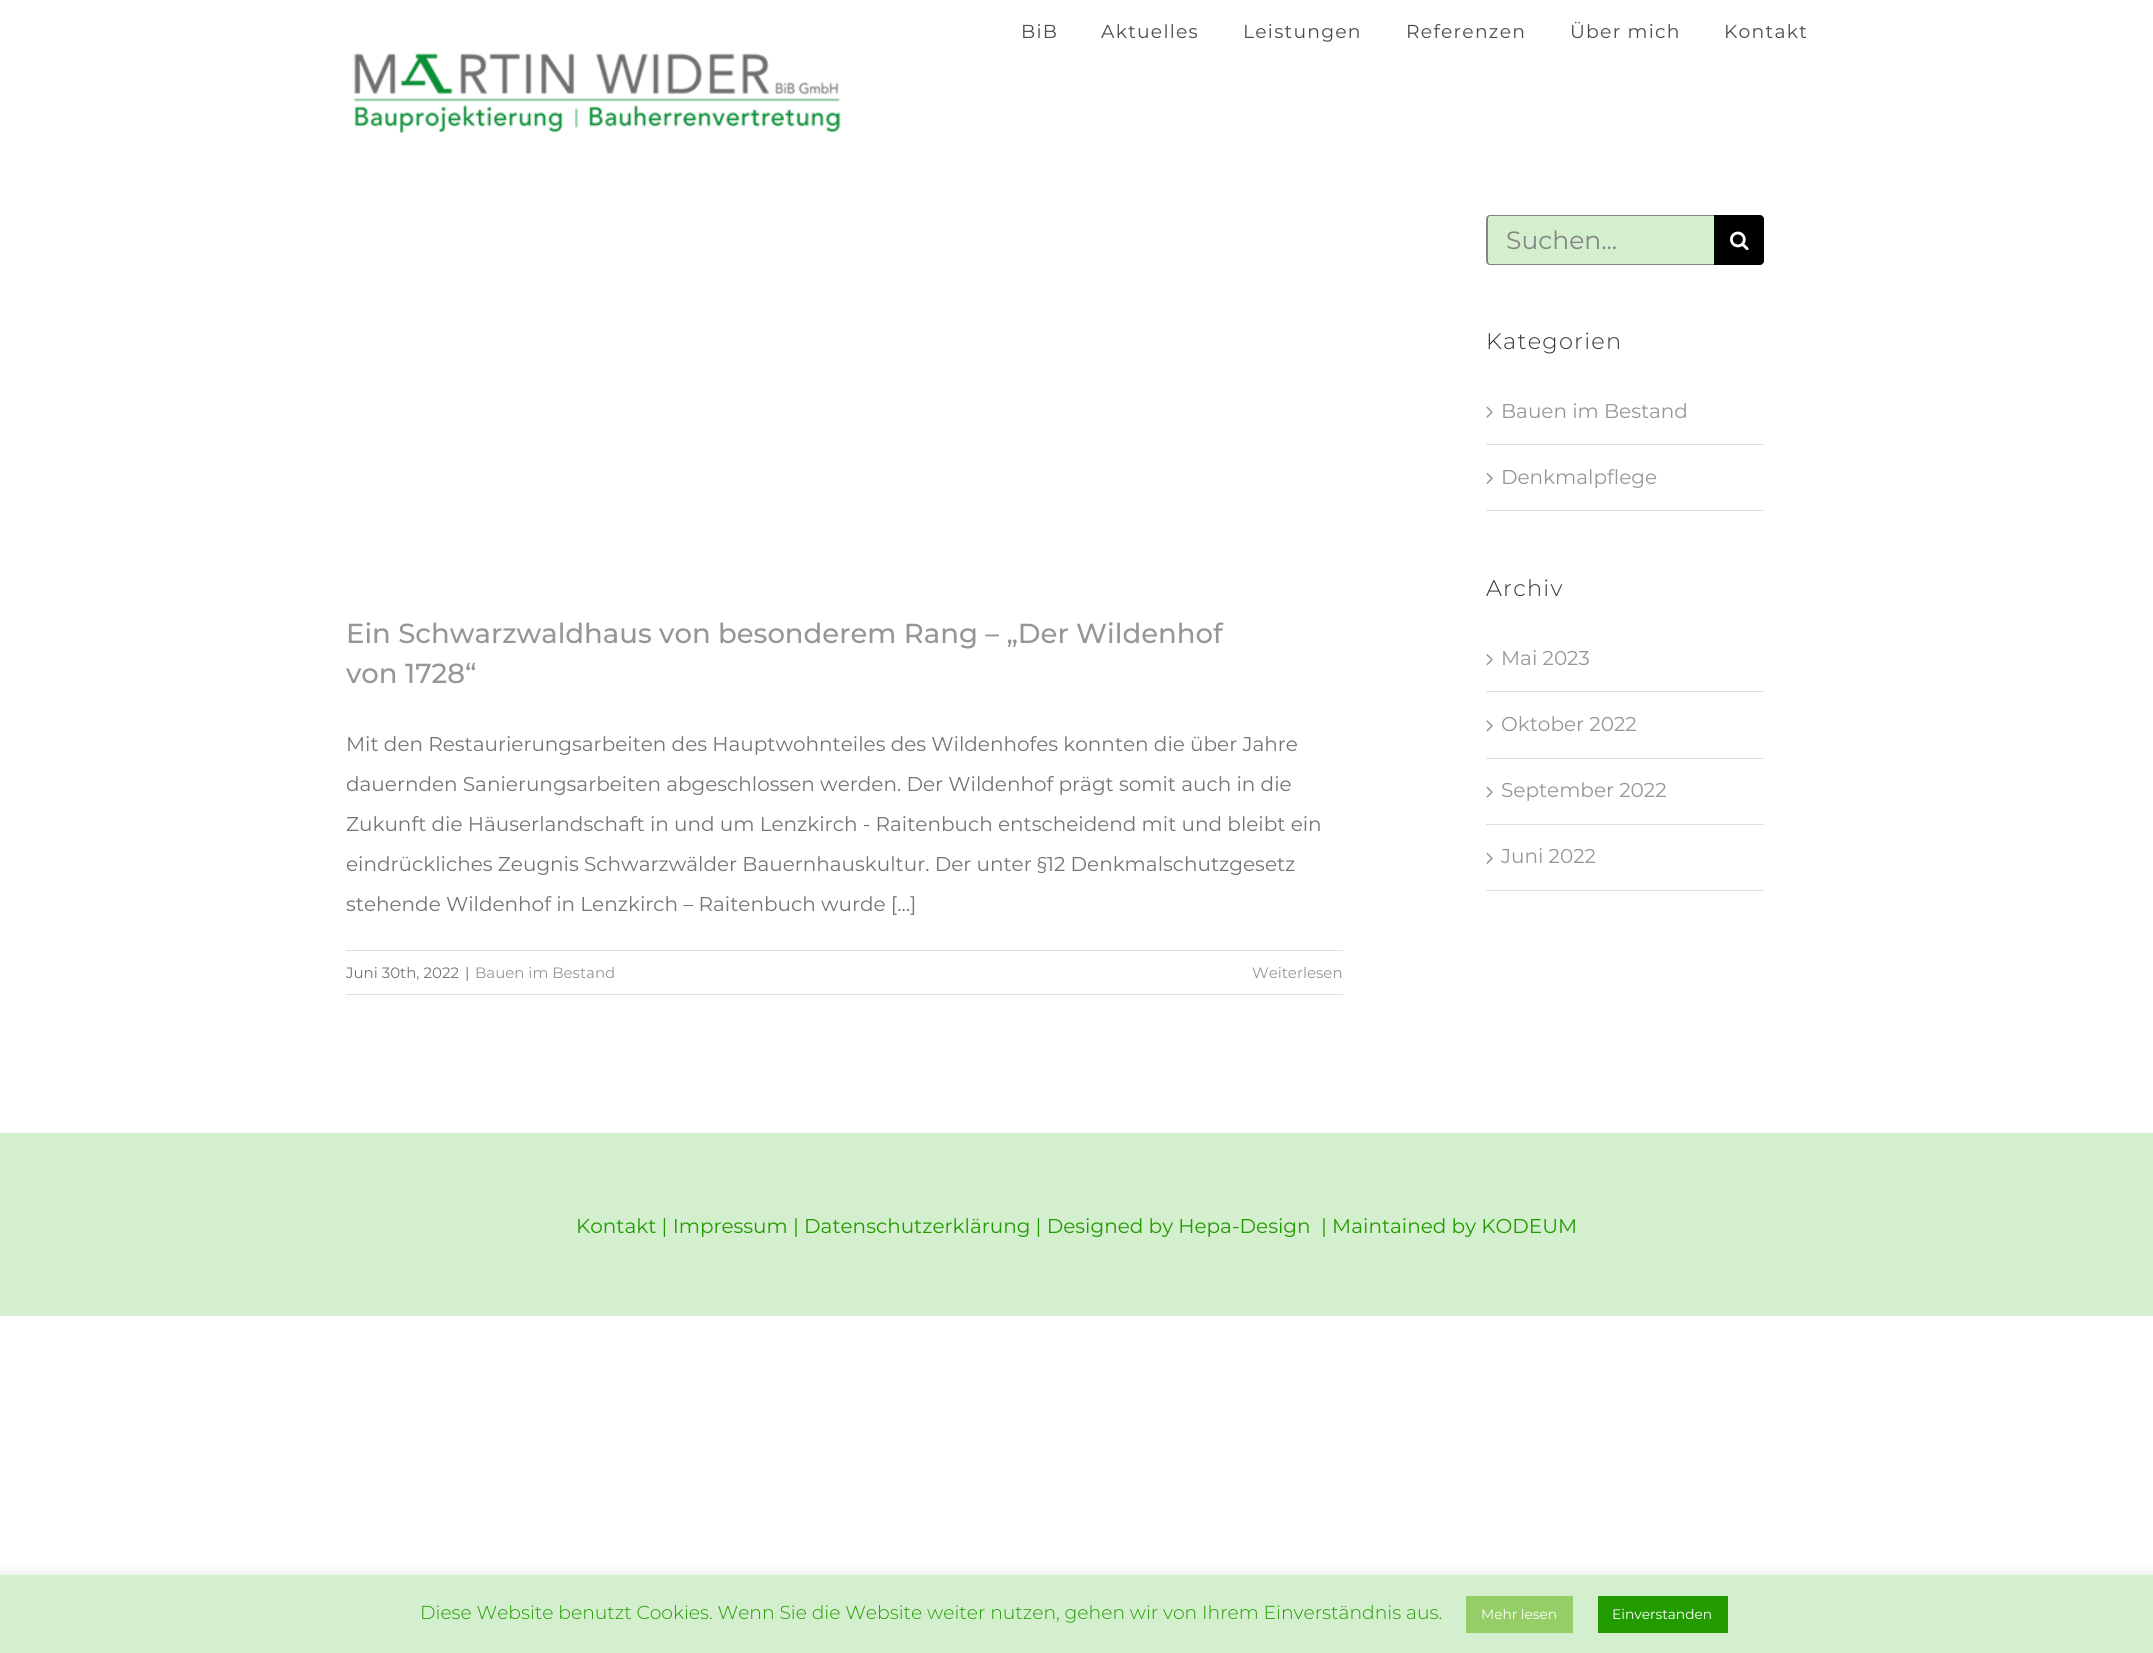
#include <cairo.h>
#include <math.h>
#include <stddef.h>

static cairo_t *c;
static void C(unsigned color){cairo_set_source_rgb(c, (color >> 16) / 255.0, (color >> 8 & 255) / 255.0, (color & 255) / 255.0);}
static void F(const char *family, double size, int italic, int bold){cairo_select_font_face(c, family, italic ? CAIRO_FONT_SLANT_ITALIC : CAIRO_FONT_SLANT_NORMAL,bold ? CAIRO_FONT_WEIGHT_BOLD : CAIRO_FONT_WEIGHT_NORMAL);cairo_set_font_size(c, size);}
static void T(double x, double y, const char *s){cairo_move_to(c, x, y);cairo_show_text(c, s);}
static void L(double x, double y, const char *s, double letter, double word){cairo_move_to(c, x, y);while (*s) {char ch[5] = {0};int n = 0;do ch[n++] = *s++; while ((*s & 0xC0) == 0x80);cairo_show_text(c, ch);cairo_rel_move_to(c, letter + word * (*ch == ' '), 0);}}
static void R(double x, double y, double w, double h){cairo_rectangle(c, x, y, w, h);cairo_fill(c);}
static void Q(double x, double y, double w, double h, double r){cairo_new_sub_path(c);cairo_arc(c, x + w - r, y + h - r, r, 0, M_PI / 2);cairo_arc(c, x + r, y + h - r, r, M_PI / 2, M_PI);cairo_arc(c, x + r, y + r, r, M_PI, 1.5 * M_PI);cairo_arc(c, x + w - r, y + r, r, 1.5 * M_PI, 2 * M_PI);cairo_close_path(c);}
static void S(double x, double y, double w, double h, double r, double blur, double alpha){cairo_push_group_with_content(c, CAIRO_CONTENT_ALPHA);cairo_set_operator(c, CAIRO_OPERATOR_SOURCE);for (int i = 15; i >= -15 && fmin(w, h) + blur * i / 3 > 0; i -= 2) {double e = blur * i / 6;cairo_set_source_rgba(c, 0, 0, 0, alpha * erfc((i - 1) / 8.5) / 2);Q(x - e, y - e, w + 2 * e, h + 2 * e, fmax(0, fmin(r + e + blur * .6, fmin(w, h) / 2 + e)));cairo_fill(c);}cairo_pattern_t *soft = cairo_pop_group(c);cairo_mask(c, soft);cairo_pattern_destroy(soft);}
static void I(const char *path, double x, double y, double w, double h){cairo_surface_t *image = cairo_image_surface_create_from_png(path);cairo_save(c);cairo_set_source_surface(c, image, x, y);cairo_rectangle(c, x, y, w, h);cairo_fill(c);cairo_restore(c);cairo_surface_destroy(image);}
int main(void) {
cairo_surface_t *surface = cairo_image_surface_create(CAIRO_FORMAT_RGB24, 2153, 1653);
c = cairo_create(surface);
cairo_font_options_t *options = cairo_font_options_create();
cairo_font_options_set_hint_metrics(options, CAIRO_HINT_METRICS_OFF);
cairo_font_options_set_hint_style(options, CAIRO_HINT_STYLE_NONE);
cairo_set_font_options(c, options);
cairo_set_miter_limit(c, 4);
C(0xffffff);
cairo_paint(c);
F("Montserrat",18.75,0,0);
C(0x4c4c4c);
L(1021,38,"BiB",1.25,0);
L(1101,38,"Aktuelles",1.25,0);
L(1243,38,"Leistungen",1.25,0);
L(1406,38,"Referenzen",1.25,0);
L(1570,38,"Über mich",1.25,0);
L(1724,38,"Kontakt",1.25,0);
I("1.png",353,53,488,80);
F("Montserrat Medium",27.5,0,0);
C(0x969696);
T(346,643,"Ein Schwarzwaldhaus von besonderem Rang – „Der Wildenhof");
T(346,683,"von 1728“");
F("Montserrat",20,0,0);
C(0x747474);
T(346,751,"Mit den Restaurierungsarbeiten des Hauptwohnteiles des Wildenhofes konnten die über Jahre");
T(346,791,"dauernden Sanierungsarbeiten abgeschlossen werden. Der Wildenhof prägt somit auch in die");
T(346,831,"Zukunft die Häuserlandschaft in und um Lenzkirch - Raitenbuch entscheidend mit und bleibt ein");
T(346,871,"eindrückliches Zeugnis Schwarzwälder Bauernhauskultur. Der unter §12 Denkmalschutzgesetz");
T(346,911,"stehende Wildenhof in Lenzkirch – Raitenbuch wurde [...]");
C(0xe0dede);
R(346,950,997,1);
R(346,994,997,1);
F("Montserrat",15,0,0);
C(0x747474);
T(346,978,"Juni 30th, 2022");
T(465,978,"|");
C(0x969696);
T(475,978,"Bauen im Bestand");
T(1252,978,"Weiterlesen");
C(0xd3efce);
cairo_new_path(c);
cairo_move_to(c,1490,215);
cairo_line_to(c,1714,215);
cairo_line_to(c,1714,265);
cairo_line_to(c,1490,265);
cairo_curve_to(c,1488,265,1486,263,1486,261);
cairo_line_to(c,1486,219);
cairo_curve_to(c,1486,217,1488,215,1490,215);
cairo_close_path(c);
cairo_fill(c);
C(0x848484);
cairo_set_fill_rule(c,CAIRO_FILL_RULE_EVEN_ODD);
cairo_new_path(c);
cairo_move_to(c,1490,215);
cairo_line_to(c,1714,215);
cairo_line_to(c,1714,265);
cairo_line_to(c,1490,265);
cairo_curve_to(c,1488,265,1486,263,1486,261);
cairo_line_to(c,1486,219);
cairo_curve_to(c,1486,217,1488,215,1490,215);
cairo_close_path(c);
cairo_move_to(c,1490,216);
cairo_line_to(c,1714,216);
cairo_line_to(c,1714,264);
cairo_line_to(c,1490,264);
cairo_curve_to(c,1489,264,1488,263,1488,261);
cairo_line_to(c,1488,219);
cairo_curve_to(c,1488,217,1489,216,1490,216);
cairo_close_path(c);
cairo_fill(c);
F("Montserrat",25,0,0);
T(1506,249,"Suchen...");
C(0x000000);
cairo_new_path(c);
cairo_move_to(c,1714,215);
cairo_line_to(c,1760,215);
cairo_curve_to(c,1762,215,1764,217,1764,219);
cairo_line_to(c,1764,261);
cairo_curve_to(c,1764,263,1762,265,1760,265);
cairo_line_to(c,1714,265);
cairo_close_path(c);
cairo_fill(c);
I("2.png",1730,231,19,20);
F("Montserrat Light",22.5,0,0);
C(0x333333);
L(1486,349,"Kategorien",1.25,0);
C(0xe0dede);
R(1486,444,278,1);
I("3.png",1486,406,7,12);
F("Montserrat",20,0,0);
C(0x969696);
T(1501,418,"Bauen im Bestand");
C(0xe0dede);
R(1486,510,278,1);
I("4.png",1486,472,7,12);
C(0x969696);
T(1501,484,"Denkmalpflege");
F("Montserrat Light",22.5,0,0);
C(0x333333);
L(1486,596,"Archiv",1.25,0);
C(0xe0dede);
R(1486,691,278,1);
I("5.png",1486,654,7,12);
F("Montserrat",20,0,0);
C(0x969696);
T(1501,665,"Mai 2023");
C(0xe0dede);
R(1486,758,278,1);
I("6.png",1486,720,7,12);
C(0x969696);
T(1501,731,"Oktober 2022");
C(0xe0dede);
R(1486,824,278,1);
I("3.png",1486,786,7,12);
C(0x969696);
T(1501,797,"September 2022");
C(0xe0dede);
R(1486,890,278,1);
I("4.png",1486,852,7,12);
C(0x969696);
T(1501,863,"Juni 2022");
C(0xd3efce);
R(0,1133,2153,183);
C(0x219b00);
T(576,1233,"Kontakt | Impressum | Datenschutzerklärung | Designed by Hepa-Design");
T(1321,1233,"| Maintained by KODEUM");
C(0xacabab);
S(0,1574,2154,79,0,6,.3);
C(0xd3efce);
R(0,1575,2153,78);
F("Montserrat Light",18.75,0,0);
C(0x219b00);
T(420,1619,"Diese Website benutzt Cookies. Wenn Sie die Website weiter nutzen, gehen wir von Ihrem Einverständnis aus.");
C(0x95ce67);
R(1466,1596,107,37);
F("Montserrat",13.75,0,0);
C(0xffffff);
T(1481,1619,"Mehr lesen");
C(0x219b00);
R(1598,1596,130,37);
C(0xffffff);
T(1612,1619,"Einverstanden");
cairo_surface_write_to_png(surface, "o.png");
cairo_font_options_destroy(options);
cairo_destroy(c);
cairo_surface_destroy(surface);
return 0;
}
